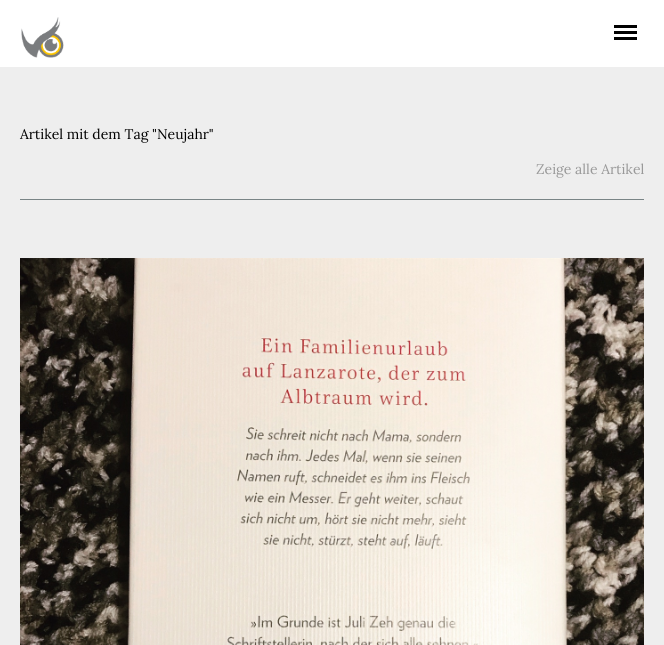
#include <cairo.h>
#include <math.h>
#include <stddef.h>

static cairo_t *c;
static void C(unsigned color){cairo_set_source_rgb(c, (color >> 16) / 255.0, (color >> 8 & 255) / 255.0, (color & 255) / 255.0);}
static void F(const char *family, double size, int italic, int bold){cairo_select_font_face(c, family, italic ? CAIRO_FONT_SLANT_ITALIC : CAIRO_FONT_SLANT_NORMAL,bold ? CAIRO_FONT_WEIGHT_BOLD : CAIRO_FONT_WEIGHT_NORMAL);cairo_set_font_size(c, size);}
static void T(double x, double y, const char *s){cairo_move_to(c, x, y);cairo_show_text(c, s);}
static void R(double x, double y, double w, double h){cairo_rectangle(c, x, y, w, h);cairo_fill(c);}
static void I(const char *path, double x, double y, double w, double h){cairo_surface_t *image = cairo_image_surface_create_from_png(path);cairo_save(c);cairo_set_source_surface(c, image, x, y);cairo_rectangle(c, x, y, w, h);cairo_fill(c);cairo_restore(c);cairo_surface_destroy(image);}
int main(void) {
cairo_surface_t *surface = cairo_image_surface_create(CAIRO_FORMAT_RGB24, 664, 645);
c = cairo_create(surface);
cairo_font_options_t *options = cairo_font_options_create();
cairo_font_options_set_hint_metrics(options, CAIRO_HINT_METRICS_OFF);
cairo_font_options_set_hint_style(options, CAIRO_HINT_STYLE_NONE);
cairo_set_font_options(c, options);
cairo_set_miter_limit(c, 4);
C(0xffffff);
cairo_paint(c);
I("1.png",21,17,43,41);
C(0x000000);
R(614,31,23,3);
R(614,25,23,3);
R(614,37,23,3);
C(0xeeeeee);
R(0,67,664,578);
F("Lora",14,0,0);
C(0x000000);
T(20,139,"Artikel mit dem Tag \"Neujahr\"");
C(0x999999);
T(536,174,"Zeige alle Artikel");
C(0x798486);
R(20,199,624,1);
I("2.png",20,258,624,387);
cairo_surface_write_to_png(surface, "o.png");
cairo_font_options_destroy(options);
cairo_destroy(c);
cairo_surface_destroy(surface);
return 0;
}
